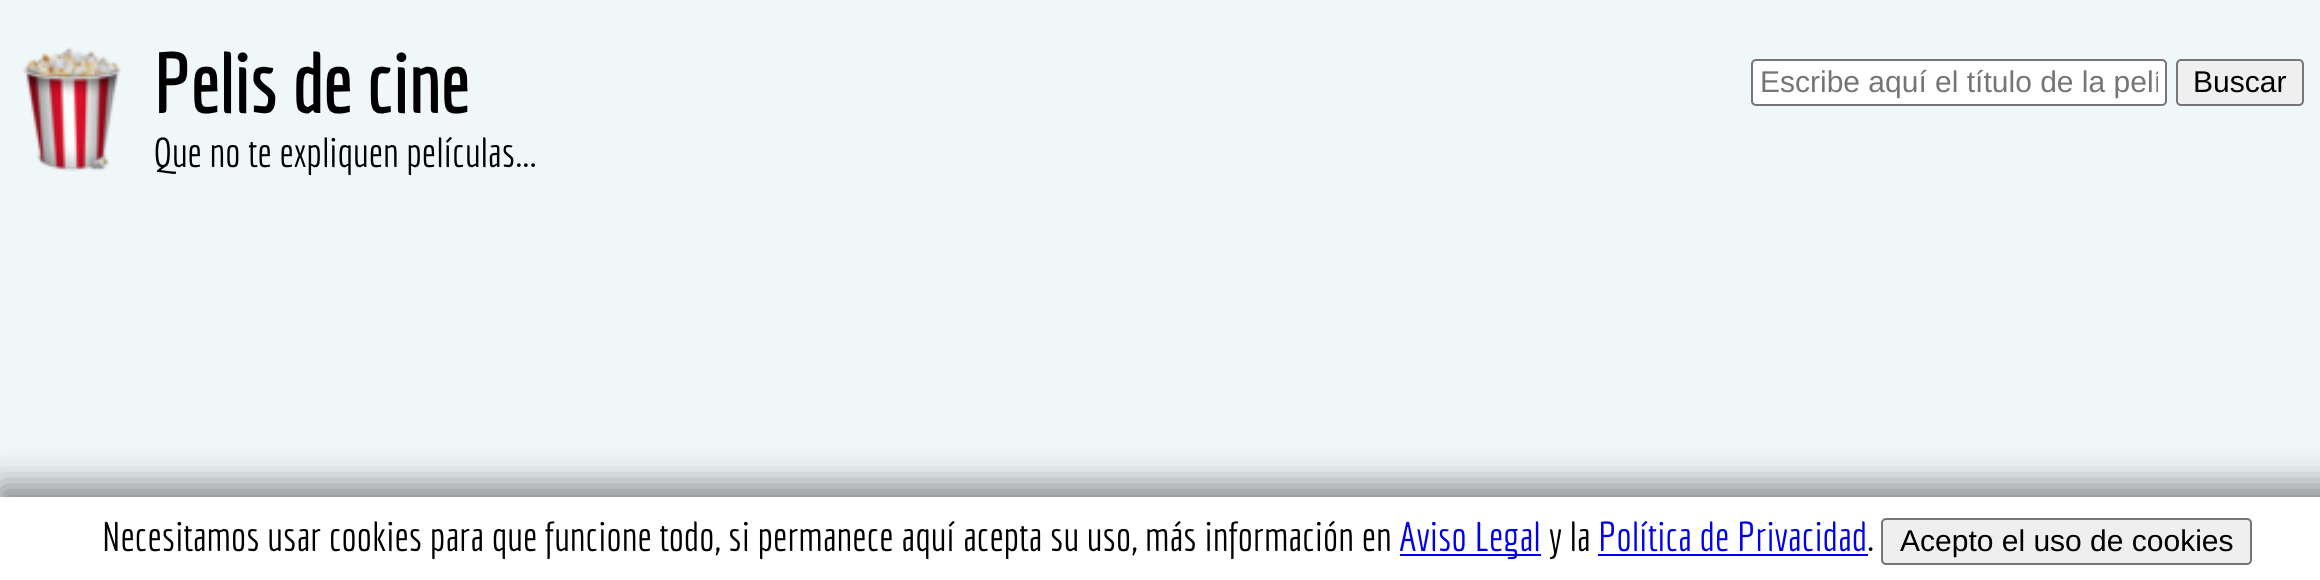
#include <cairo.h>
#include <math.h>
#include <stddef.h>

static cairo_t *c;
static void C(unsigned color){cairo_set_source_rgb(c, (color >> 16) / 255.0, (color >> 8 & 255) / 255.0, (color & 255) / 255.0);}
static void F(const char *family, double size, int italic, int bold){cairo_select_font_face(c, family, italic ? CAIRO_FONT_SLANT_ITALIC : CAIRO_FONT_SLANT_NORMAL,bold ? CAIRO_FONT_WEIGHT_BOLD : CAIRO_FONT_WEIGHT_NORMAL);cairo_set_font_size(c, size);}
static void T(double x, double y, const char *s){cairo_move_to(c, x, y);cairo_show_text(c, s);}
static void R(double x, double y, double w, double h){cairo_rectangle(c, x, y, w, h);cairo_fill(c);}
static void Q(double x, double y, double w, double h, double r){cairo_new_sub_path(c);cairo_arc(c, x + w - r, y + h - r, r, 0, M_PI / 2);cairo_arc(c, x + r, y + h - r, r, M_PI / 2, M_PI);cairo_arc(c, x + r, y + r, r, M_PI, 1.5 * M_PI);cairo_arc(c, x + w - r, y + r, r, 1.5 * M_PI, 2 * M_PI);cairo_close_path(c);}
static void S(double x, double y, double w, double h, double r, double blur, double alpha){cairo_push_group_with_content(c, CAIRO_CONTENT_ALPHA);cairo_set_operator(c, CAIRO_OPERATOR_SOURCE);for (int i = 15; i >= -15 && fmin(w, h) + blur * i / 3 > 0; i -= 2) {double e = blur * i / 6;cairo_set_source_rgba(c, 0, 0, 0, alpha * erfc((i - 1) / 8.5) / 2);Q(x - e, y - e, w + 2 * e, h + 2 * e, fmax(0, fmin(r + e + blur * .6, fmin(w, h) / 2 + e)));cairo_fill(c);}cairo_pattern_t *soft = cairo_pop_group(c);cairo_mask(c, soft);cairo_pattern_destroy(soft);}
static void I(const char *path, double x, double y, double w, double h){cairo_surface_t *image = cairo_image_surface_create_from_png(path);cairo_save(c);cairo_set_source_surface(c, image, x, y);cairo_rectangle(c, x, y, w, h);cairo_fill(c);cairo_restore(c);cairo_surface_destroy(image);}
int main(void) {
cairo_surface_t *surface = cairo_image_surface_create(CAIRO_FORMAT_RGB24, 2320, 580);
c = cairo_create(surface);
cairo_font_options_t *options = cairo_font_options_create();
cairo_font_options_set_hint_metrics(options, CAIRO_HINT_METRICS_OFF);
cairo_font_options_set_hint_style(options, CAIRO_HINT_STYLE_NONE);
cairo_set_font_options(c, options);
cairo_set_miter_limit(c, 4);
C(0xf0f7f8);
cairo_paint(c);
I("1.png",22,47,100,125);
F("Economica",81,0,1);
C(0x000000);
T(153,113,"Pelis de cine");
F("Economica",40.5,0,0);
T(153,167,"Que no te expliquen películas...");
C(0xffffff);
Q(1752,60,414,45,4);
cairo_fill_preserve(c);
C(0x767676);
cairo_stroke(c);
cairo_save(c);
cairo_rectangle(c,1760,65,398,34);
cairo_clip(c);
F("Liberation Sans",30,0,0);
C(0x757575);
T(1760,92,"Escribe aquí el título de la pelí");
cairo_restore(c);
C(0xefefef);
Q(2177,60,126,45,4);
cairo_fill_preserve(c);
C(0x767676);
cairo_stroke(c);
F("Liberation Sans",30,0,0);
C(0x000000);
T(2193,92,"Buscar");
C(0x808080);
S(0,486,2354,83,0,17,1);
C(0xffffff);
R(0,497,2320,83);
F("Economica",40.5,0,0);
C(0x000000);
T(102,551,"Necesitamos usar cookies para que funcione todo, si permanece aquí acepta su uso, más información en");
C(0x0000ee);
R(1400,554,141,2);
T(1399,551,"Aviso Legal");
C(0x000000);
T(1549,551,"y la");
C(0x0000ee);
T(1598,551,"Política de Privacidad");
R(1598,554,270,2);
C(0x000000);
T(1867,551,".");
C(0xefefef);
Q(1882,519,369,45,4);
cairo_fill_preserve(c);
C(0x767676);
cairo_stroke(c);
F("Liberation Sans",30,0,0);
C(0x000000);
T(1900,551,"Acepto el uso de cookies");
cairo_surface_write_to_png(surface, "o.png");
cairo_font_options_destroy(options);
cairo_destroy(c);
cairo_surface_destroy(surface);
return 0;
}
